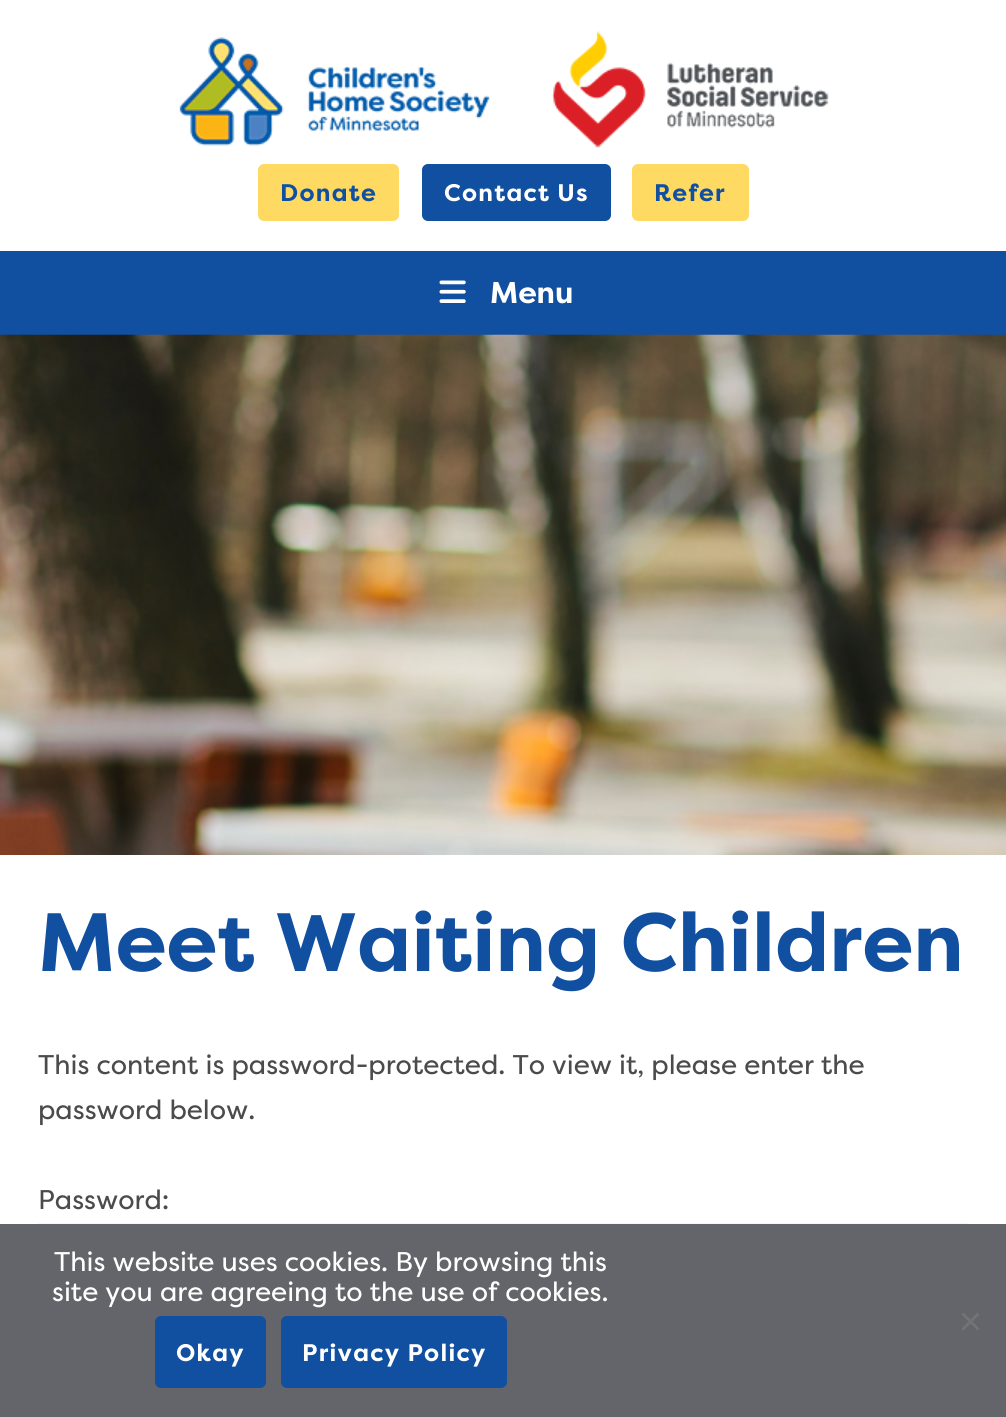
#include <cairo.h>
#include <math.h>
#include <stddef.h>

static cairo_t *c;
static void C(unsigned color){cairo_set_source_rgb(c, (color >> 16) / 255.0, (color >> 8 & 255) / 255.0, (color & 255) / 255.0);}
static void F(const char *family, double size, int italic, int bold){cairo_select_font_face(c, family, italic ? CAIRO_FONT_SLANT_ITALIC : CAIRO_FONT_SLANT_NORMAL,bold ? CAIRO_FONT_WEIGHT_BOLD : CAIRO_FONT_WEIGHT_NORMAL);cairo_set_font_size(c, size);}
static void T(double x, double y, const char *s){cairo_move_to(c, x, y);cairo_show_text(c, s);}
static void L(double x, double y, const char *s, double letter, double word){cairo_move_to(c, x, y);while (*s) {char ch[5] = {0};int n = 0;do ch[n++] = *s++; while ((*s & 0xC0) == 0x80);cairo_show_text(c, ch);cairo_rel_move_to(c, letter + word * (*ch == ' '), 0);}}
static void R(double x, double y, double w, double h){cairo_rectangle(c, x, y, w, h);cairo_fill(c);}
static void Q(double x, double y, double w, double h, double r){cairo_new_sub_path(c);cairo_arc(c, x + w - r, y + h - r, r, 0, M_PI / 2);cairo_arc(c, x + r, y + h - r, r, M_PI / 2, M_PI);cairo_arc(c, x + r, y + r, r, M_PI, 1.5 * M_PI);cairo_arc(c, x + w - r, y + r, r, 1.5 * M_PI, 2 * M_PI);cairo_close_path(c);}
static void I(const char *path, double x, double y, double w, double h){cairo_surface_t *image = cairo_image_surface_create_from_png(path);cairo_save(c);cairo_set_source_surface(c, image, x, y);cairo_rectangle(c, x, y, w, h);cairo_fill(c);cairo_restore(c);cairo_surface_destroy(image);}
int main(void) {
cairo_surface_t *surface = cairo_image_surface_create(CAIRO_FORMAT_RGB24, 1006, 1417);
c = cairo_create(surface);
cairo_font_options_t *options = cairo_font_options_create();
cairo_font_options_set_hint_metrics(options, CAIRO_HINT_METRICS_OFF);
cairo_font_options_set_hint_style(options, CAIRO_HINT_STYLE_NONE);
cairo_set_font_options(c, options);
cairo_set_miter_limit(c, 4);
C(0xffffff);
cairo_paint(c);
I("1.png",179,31,650,117);
C(0xffda63);
Q(258,164,141,57,6);
cairo_fill(c);
F("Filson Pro",24,0,1);
C(0x114fa0);
L(280,201,"Donate",1.25,0);
Q(422,164,189,57,6);
cairo_fill(c);
C(0xffffff);
L(444,201,"Contact Us",1.25,0);
C(0xffda63);
Q(632,164,117,57,6);
cairo_fill(c);
C(0x114fa0);
L(654,201,"Refer",1.25,0);
R(0,251,1006,84);
I("2.png",439,280,27,23);
F("Filson Pro",30,0,1);
C(0xffffff);
T(490,303,"Menu");
I("3.png",0,334,1006,521);
F("Filson Pro",82.5,0,1);
C(0x114fa0);
T(38,971,"Meet Waiting Children");
F("Filson Pro",27,0,0);
C(0x4b4b4b);
T(38,1074,"This content is password-protected. To view it, please enter the");
T(38,1119,"password below.");
T(38,1209,"Password:");
C(0xf7f7f7);
R(38,1223,931,1);
C(0x64656a);
R(0,1224,1006,193);
C(0xffffff);
T(54,1271,"This website uses cookies. By browsing this");
T(52,1301,"site you are agreeing to the use of cookies.");
C(0x727375);
cairo_new_path(c);
cairo_move_to(c,977.5,1312.5);
cairo_line_to(c,979.5,1314.5);
cairo_line_to(c,963.5,1330.5);
cairo_line_to(c,961.5,1328.5);
cairo_close_path(c);
cairo_fill(c);
cairo_new_path(c);
cairo_move_to(c,961.5,1314.5);
cairo_line_to(c,963.5,1312.5);
cairo_line_to(c,979.5,1328.5);
cairo_line_to(c,977.5,1330.5);
cairo_close_path(c);
cairo_fill(c);
C(0x114fa0);
Q(155,1316,111,72,6);
cairo_fill(c);
F("Filson Pro",24,0,1);
C(0xffffff);
L(176,1361,"Okay",1.25,0);
C(0x114fa0);
Q(281,1316,226,72,6);
cairo_fill(c);
C(0xffffff);
L(302,1361,"Privacy Policy",1.25,0);
cairo_surface_write_to_png(surface, "o.png");
cairo_font_options_destroy(options);
cairo_destroy(c);
cairo_surface_destroy(surface);
return 0;
}
